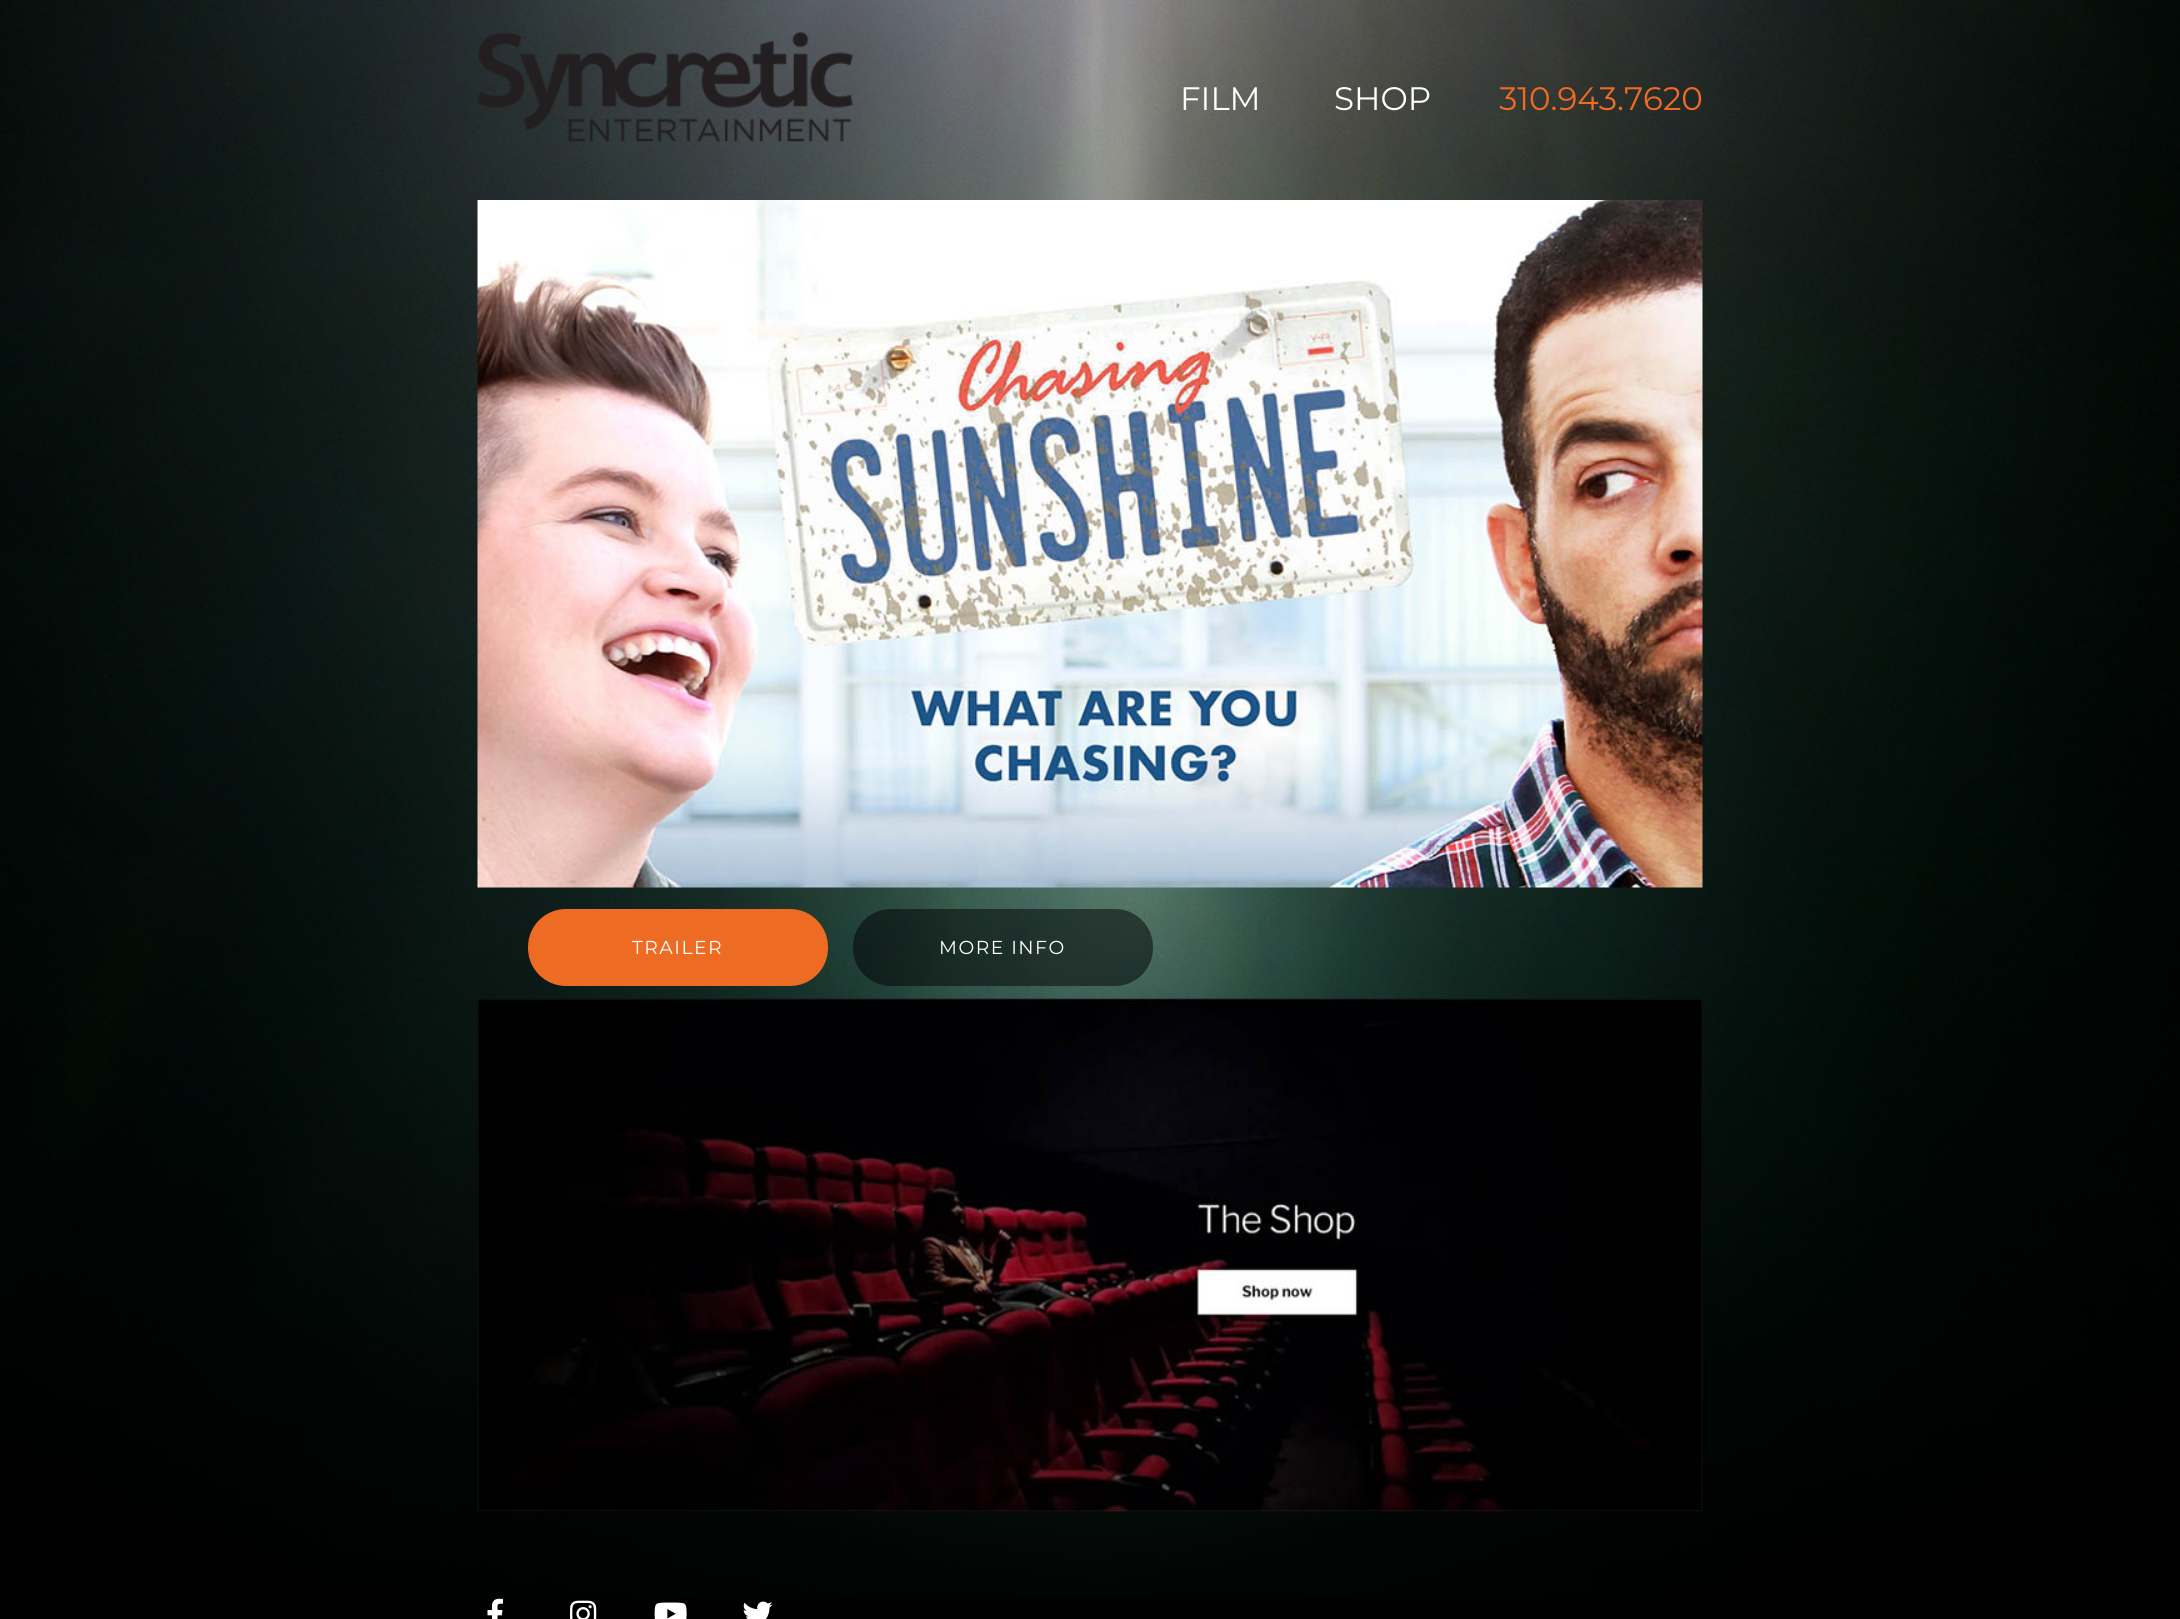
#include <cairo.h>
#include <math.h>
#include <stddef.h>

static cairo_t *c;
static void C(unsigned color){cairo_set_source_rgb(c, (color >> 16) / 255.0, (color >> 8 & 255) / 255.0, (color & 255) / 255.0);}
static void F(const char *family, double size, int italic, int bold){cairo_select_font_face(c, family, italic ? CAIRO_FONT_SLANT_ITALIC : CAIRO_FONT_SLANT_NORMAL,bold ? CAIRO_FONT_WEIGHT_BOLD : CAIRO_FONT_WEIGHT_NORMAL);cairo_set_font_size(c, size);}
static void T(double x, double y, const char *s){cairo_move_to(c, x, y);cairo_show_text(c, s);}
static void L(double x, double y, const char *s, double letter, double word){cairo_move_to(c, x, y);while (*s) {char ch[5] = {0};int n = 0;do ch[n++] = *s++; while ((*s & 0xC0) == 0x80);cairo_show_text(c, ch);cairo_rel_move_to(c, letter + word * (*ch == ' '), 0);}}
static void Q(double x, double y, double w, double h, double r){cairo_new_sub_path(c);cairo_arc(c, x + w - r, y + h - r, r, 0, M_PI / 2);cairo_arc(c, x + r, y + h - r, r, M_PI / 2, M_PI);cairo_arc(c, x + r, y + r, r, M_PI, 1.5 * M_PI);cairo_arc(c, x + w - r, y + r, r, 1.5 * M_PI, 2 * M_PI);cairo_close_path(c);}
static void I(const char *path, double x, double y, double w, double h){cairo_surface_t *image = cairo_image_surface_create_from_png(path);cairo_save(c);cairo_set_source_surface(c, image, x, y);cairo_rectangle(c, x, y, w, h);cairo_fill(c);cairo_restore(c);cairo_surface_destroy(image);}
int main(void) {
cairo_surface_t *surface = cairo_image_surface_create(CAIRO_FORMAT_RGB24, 2180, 1619);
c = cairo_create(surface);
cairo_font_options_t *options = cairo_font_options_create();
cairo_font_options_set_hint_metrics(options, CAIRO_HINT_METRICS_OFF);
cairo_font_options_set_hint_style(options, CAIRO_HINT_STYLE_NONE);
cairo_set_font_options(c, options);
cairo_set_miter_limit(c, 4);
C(0x000000);
cairo_paint(c);
I("1.png",0,0,2180,1599);
I("2.png",477,32,376,110);
F("Montserrat",32.5,0,0);
C(0xffffff);
T(1180,110,"FILM");
T(1334,110,"SHOP");
C(0xee6b23);
T(1499,110,"310.943.7620");
I("3.png",477,200,1226,688);
Q(528,909,300,77,38);
cairo_fill(c);
F("Montserrat",18.75,0,0);
C(0xffffff);
L(632,954,"TRAILER",1.5,0);
cairo_set_source_rgba(c,0,0,0,0.5);
Q(853,909,300,77,38);
cairo_fill(c);
C(0xffffff);
L(939,954,"MORE INFO",1.5,0);
I("4.png",477,998,1226,514);
I("5.png",487,1598,16,21);
I("6.png",570,1600,27,19);
I("7.png",654,1602,33,17);
I("8.png",743,1601,30,18);
cairo_surface_write_to_png(surface, "o.png");
cairo_font_options_destroy(options);
cairo_destroy(c);
cairo_surface_destroy(surface);
return 0;
}
